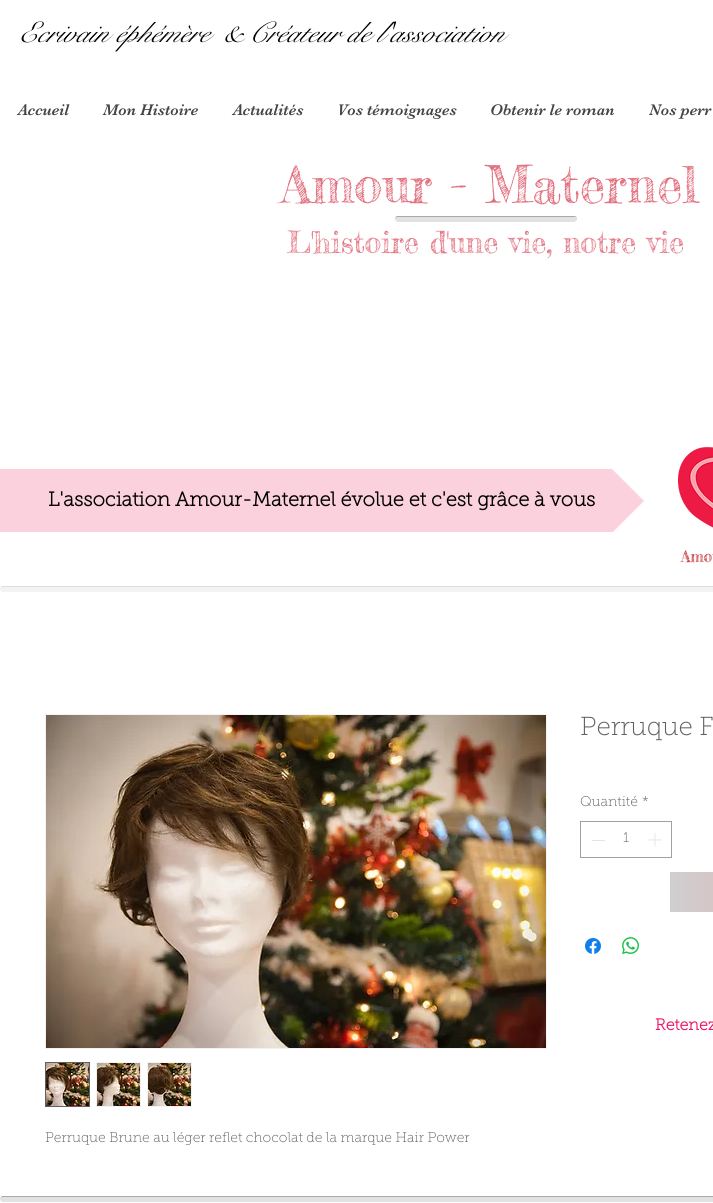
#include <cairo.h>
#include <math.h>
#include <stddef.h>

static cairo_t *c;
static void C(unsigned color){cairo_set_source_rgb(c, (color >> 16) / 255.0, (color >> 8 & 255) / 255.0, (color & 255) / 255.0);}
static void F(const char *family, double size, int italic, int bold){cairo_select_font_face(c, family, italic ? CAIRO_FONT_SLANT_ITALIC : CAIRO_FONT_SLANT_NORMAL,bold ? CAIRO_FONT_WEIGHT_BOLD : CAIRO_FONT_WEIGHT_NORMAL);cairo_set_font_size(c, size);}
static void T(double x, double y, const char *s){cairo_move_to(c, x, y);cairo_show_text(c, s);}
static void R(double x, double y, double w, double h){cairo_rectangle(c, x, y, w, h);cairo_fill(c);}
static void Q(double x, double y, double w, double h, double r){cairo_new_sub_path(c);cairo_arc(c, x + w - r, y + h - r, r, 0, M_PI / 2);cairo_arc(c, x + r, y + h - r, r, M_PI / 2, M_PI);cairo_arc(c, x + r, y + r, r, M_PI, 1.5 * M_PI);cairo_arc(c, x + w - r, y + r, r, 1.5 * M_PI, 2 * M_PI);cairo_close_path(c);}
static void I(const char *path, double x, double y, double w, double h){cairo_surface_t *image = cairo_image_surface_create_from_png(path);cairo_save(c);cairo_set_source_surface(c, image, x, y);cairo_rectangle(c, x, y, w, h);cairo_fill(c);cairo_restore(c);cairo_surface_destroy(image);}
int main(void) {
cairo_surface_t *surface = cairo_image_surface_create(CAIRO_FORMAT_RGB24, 713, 1203);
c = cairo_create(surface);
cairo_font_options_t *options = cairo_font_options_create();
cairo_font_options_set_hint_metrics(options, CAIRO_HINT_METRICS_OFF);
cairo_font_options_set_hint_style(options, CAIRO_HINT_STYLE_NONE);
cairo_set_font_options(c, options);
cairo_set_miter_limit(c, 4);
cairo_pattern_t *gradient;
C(0xffffff);
cairo_paint(c);
F("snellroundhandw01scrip",29,1,0);
C(0x000000);
T(18,42,"Ecrivain éphémère");
T(223,42,"& Créateur de l'association");
F("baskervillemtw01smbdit",16,0,0);
C(0x444444);
T(18,115,"Accueil");
T(103,115,"Mon Histoire");
T(233,115,"Actualités");
T(337,115,"Vos témoignages");
T(490,115,"Obtenir le roman");
T(649,115,"Nos perr");
F("Fredericka the Great",51,0,0);
C(0xe27180);
T(281,203,"Amour - Maternel");
C(0xe3e2e2);
Q(395,216,182,6,3);
cairo_fill(c);
cairo_set_source_rgba(c,0,0,0,0.25);
cairo_new_path(c);
cairo_move_to(c,398,217);
cairo_line_to(c,575,217);
cairo_curve_to(c,576,217,577,218,577,219);
cairo_curve_to(c,577,217,576,216,574,216);
cairo_line_to(c,397,216);
cairo_curve_to(c,396,216,395,218,395,219);
cairo_curve_to(c,395,218,396,217,398,217);
cairo_close_path(c);
cairo_fill(c);
F("Fredericka the Great",30,0,0);
C(0xe27180);
T(287,253,"L'histoire d'une vie, notre vie");
C(0xfbd1dd);
R(0,469,594,63);
cairo_save(c);
cairo_rectangle(c,0,469,644,63);
cairo_clip(c);
cairo_new_path(c);
cairo_move_to(c,644,501);
cairo_line_to(c,594,501);
cairo_line_to(c,594,451);
cairo_close_path(c);
cairo_move_to(c,594,501);
cairo_line_to(c,644,501);
cairo_line_to(c,594,551);
cairo_close_path(c);
cairo_fill(c);
cairo_restore(c);
F("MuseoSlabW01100",20,0,1);
C(0x000000);
T(48,506,"L'association Amour-Maternel évolue et c'est grâce à vous");
I("1.png",678,447,35,116);
C(0xf4f3f3);
Q(0,586,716,6,3);
cairo_fill(c);
cairo_set_source_rgba(c,0.6,0.6,0.6,0.25);
cairo_new_path(c);
cairo_move_to(c,3,587);
cairo_line_to(c,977,587);
cairo_curve_to(c,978,587,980,588,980,589);
cairo_curve_to(c,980,588,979,586,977,586);
cairo_line_to(c,2,586);
cairo_line_to(c,1,587);
cairo_line_to(c,0,589);
cairo_curve_to(c,0,588,1,587,3,587);
cairo_close_path(c);
cairo_fill(c);
F("MuseoSlabW01100 Thin",26,0,0);
C(0x606060);
T(580,735,"Perruque F");
F("MuseoSlabW01100 Thin",14,0,0);
T(580,806,"Quantité");
T(642,806,"*");
cairo_rectangle(c,580.5,821.5,91,36);
C(0xa0a0a0);
cairo_set_line_width(c,1);
cairo_stroke(c);
C(0xe3e3e3);
R(592,840,13,1);
C(0x606060);
T(623,842,"1");
I("2.png",648,833,14,14);
I("3.png",585,938,16,16);
I("4.png",622,937,17,17);
cairo_rectangle(c,45.5,714.5,501,334);
C(0xf2f2f2);
cairo_stroke(c);
I("5.png",46,715,500,333);
cairo_rectangle(c,45.5,1062.5,44,44);
C(0x606060);
cairo_stroke(c);
I("6.png",46,1063,43,43);
C(0xf2f2f2);
R(96,1062,45,45);
I("7.png",97,1063,43,43);
R(147,1062,45,45);
I("8.png",148,1063,43,43);
C(0x606060);
T(45,1142,"Perruque Brune au léger reflet chocolat de la marque Hair Power");
gradient = cairo_pattern_create_linear(670,892,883,892);
cairo_pattern_add_color_stop_rgba(gradient,0,0.812,0.812,0.812,1);
cairo_pattern_add_color_stop_rgba(gradient,1,0.941,0.627,0.671,1);
cairo_set_source(c,gradient);
cairo_pattern_destroy(gradient);
R(670,872,43,40);
F("MuseoSlabW01100",16,0,1);
C(0xed1566);
T(655,1030,"Retenez");
C(0xe3e2e2);
Q(0,1196,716,6,3);
cairo_fill(c);
cairo_set_source_rgba(c,0,0,0,0.25);
cairo_new_path(c);
cairo_move_to(c,3,1197);
cairo_line_to(c,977,1197);
cairo_curve_to(c,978,1197,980,1198,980,1199);
cairo_curve_to(c,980,1198,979,1196,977,1196);
cairo_line_to(c,2,1196);
cairo_line_to(c,1,1197);
cairo_line_to(c,0,1199);
cairo_curve_to(c,0,1198,1,1197,3,1197);
cairo_close_path(c);
cairo_fill(c);
cairo_surface_write_to_png(surface, "o.png");
cairo_font_options_destroy(options);
cairo_destroy(c);
cairo_surface_destroy(surface);
return 0;
}
